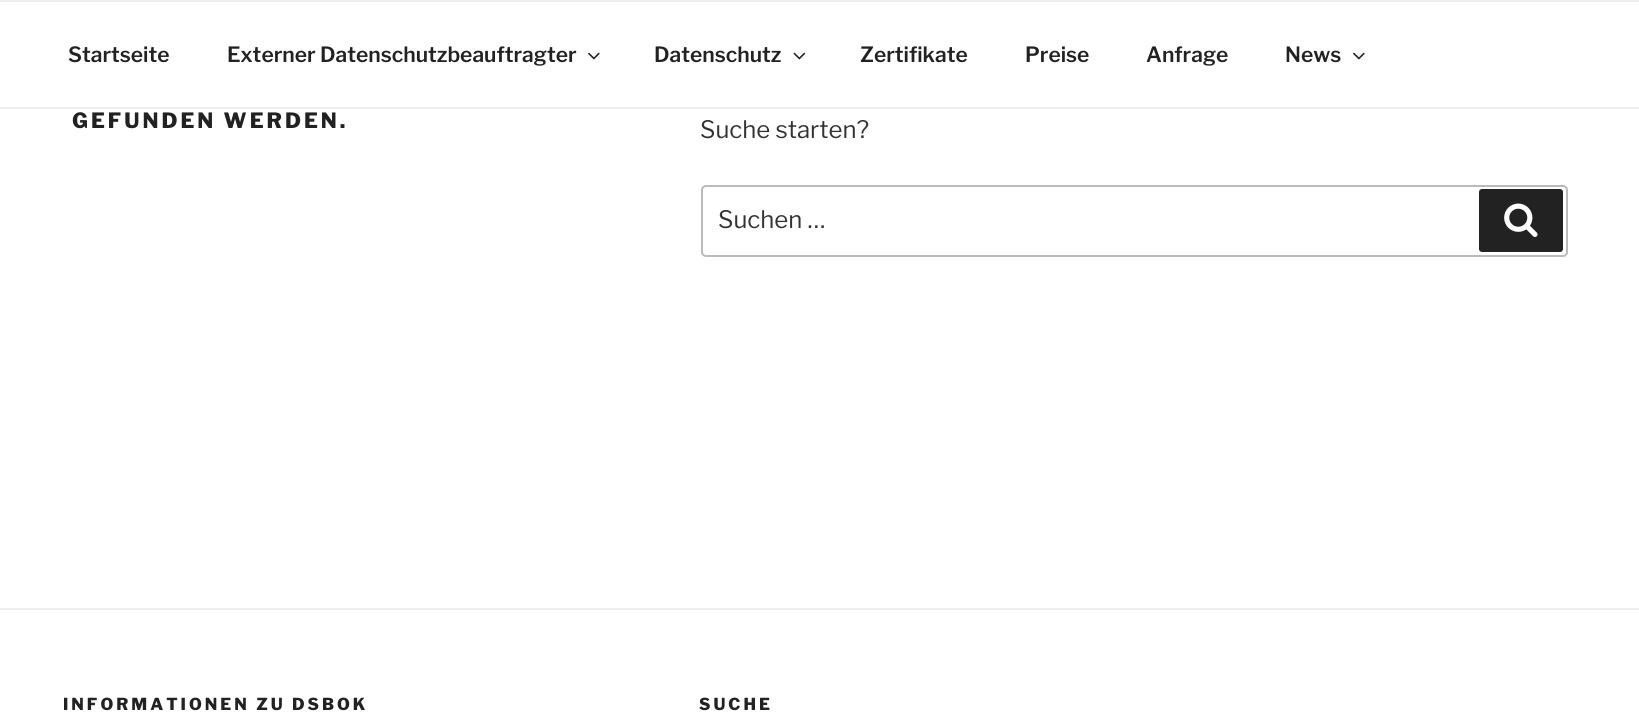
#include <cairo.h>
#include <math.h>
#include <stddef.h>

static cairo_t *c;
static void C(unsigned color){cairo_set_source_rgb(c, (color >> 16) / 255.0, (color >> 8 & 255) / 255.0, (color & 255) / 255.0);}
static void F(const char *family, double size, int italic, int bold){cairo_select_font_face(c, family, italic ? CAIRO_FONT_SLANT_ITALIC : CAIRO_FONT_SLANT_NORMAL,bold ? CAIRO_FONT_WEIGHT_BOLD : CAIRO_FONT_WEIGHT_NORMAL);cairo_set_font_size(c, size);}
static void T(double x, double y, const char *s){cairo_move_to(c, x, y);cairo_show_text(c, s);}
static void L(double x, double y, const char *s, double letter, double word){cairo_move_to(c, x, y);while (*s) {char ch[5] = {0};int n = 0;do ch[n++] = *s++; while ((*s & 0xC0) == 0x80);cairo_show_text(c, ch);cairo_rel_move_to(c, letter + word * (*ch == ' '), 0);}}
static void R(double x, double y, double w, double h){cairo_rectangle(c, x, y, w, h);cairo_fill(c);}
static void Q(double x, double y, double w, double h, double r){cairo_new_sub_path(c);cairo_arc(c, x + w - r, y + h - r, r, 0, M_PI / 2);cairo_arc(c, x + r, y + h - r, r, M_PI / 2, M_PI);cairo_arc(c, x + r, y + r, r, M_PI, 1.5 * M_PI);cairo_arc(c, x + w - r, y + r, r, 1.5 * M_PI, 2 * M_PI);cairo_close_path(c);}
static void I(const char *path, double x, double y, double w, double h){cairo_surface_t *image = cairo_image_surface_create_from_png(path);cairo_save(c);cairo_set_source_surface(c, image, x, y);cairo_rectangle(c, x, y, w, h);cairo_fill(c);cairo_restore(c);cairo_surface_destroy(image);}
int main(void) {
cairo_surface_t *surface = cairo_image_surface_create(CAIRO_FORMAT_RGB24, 1639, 721);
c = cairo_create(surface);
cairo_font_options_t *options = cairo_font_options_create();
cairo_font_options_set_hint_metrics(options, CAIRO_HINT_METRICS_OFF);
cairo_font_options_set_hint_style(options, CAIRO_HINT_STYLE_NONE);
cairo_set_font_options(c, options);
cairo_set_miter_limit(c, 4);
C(0xffffff);
cairo_paint(c);
C(0xeeeeee);
R(0,0,1639,2);
R(0,107,1639,2);
F("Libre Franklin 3 Thin",21,0,0);
C(0x222222);
T(68,62,"Startseite");
T(227,62,"Externer Datenschutzbeauftragter");
I("1.png",588,52,12,8);
T(654,62,"Datenschutz");
I("2.png",793,52,13,8);
T(860,62,"Zertifikate");
T(1025,62,"Preise");
T(1146,62,"Anfrage");
T(1285,62,"News");
I("1.png",1353,52,12,8);
F("Libre Franklin Thin",21,0,0);
L(72,128,"GEFUNDEN WERDEN.",3,0);
F("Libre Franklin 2 Thin",24,0,0);
C(0x333333);
T(700,138,"Suche starten?");
Q(702,186,865,70,4);
C(0xbbbbbb);
cairo_stroke(c);
C(0x333333);
T(718,228,"Suchen …");
C(0x222222);
Q(1479,189,84,63,3);
cairo_fill(c);
I("3.png",1504,203,34,34);
C(0xeeeeee);
R(0,608,1639,2);
F("Libre Franklin Thin",16.5,0,0);
C(0x222222);
L(63,710,"INFORMATIONEN ZU DSBOK",3,0);
L(699,710,"SUCHE",3,0);
cairo_surface_write_to_png(surface, "o.png");
cairo_font_options_destroy(options);
cairo_destroy(c);
cairo_surface_destroy(surface);
return 0;
}
